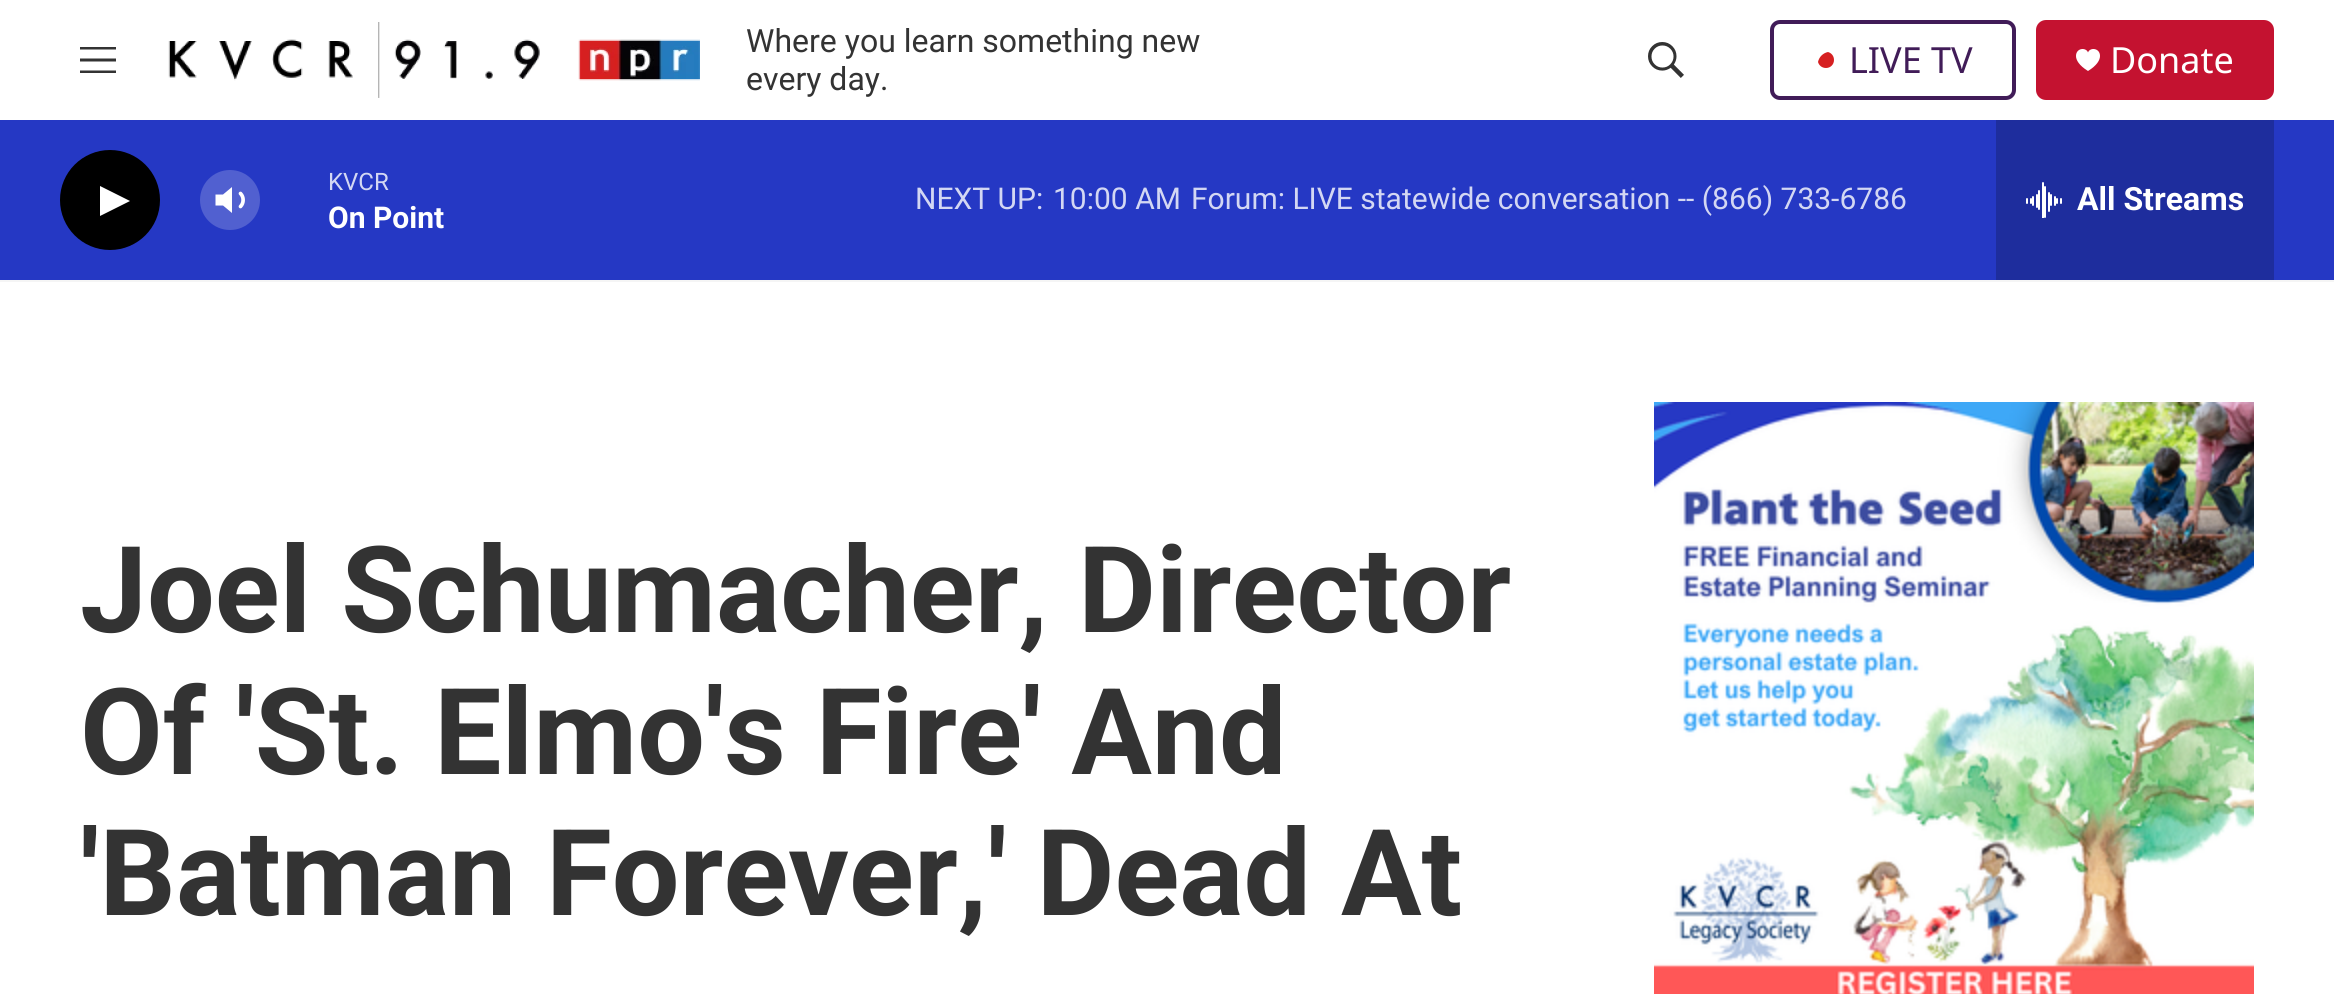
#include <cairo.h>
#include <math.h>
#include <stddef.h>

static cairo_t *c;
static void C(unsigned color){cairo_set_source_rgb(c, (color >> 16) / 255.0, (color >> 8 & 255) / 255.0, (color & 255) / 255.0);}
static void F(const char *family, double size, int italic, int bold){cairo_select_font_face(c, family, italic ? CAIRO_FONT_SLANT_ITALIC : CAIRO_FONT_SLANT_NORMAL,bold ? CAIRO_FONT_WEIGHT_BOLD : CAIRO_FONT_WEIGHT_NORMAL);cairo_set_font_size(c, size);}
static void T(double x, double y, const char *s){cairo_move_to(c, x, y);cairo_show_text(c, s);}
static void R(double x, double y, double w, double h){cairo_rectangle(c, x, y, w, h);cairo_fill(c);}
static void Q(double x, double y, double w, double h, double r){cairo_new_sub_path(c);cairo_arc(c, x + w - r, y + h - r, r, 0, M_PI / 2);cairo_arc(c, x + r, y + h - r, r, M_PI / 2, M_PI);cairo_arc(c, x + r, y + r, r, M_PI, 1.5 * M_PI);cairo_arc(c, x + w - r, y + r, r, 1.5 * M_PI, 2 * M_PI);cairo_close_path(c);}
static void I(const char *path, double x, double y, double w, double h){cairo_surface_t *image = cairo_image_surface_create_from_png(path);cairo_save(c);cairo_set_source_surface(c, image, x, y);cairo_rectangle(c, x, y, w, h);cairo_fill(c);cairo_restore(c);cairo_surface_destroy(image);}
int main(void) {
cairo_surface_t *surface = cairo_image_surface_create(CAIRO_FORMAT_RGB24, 2334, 994);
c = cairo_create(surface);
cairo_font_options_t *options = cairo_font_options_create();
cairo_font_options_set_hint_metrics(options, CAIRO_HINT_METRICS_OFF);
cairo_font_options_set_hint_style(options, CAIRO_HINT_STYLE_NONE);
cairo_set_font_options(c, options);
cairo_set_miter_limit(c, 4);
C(0xffffff);
cairo_paint(c);
C(0xf5f5f5);
R(0,280,2334,2);
C(0x333333);
cairo_set_fill_rule(c,CAIRO_FILL_RULE_EVEN_ODD);
cairo_new_path(c);
cairo_move_to(c,80,61.5);
cairo_line_to(c,80,58.5);
cairo_line_to(c,116,58.5);
cairo_line_to(c,116,61.5);
cairo_close_path(c);
cairo_move_to(c,80,49.5);
cairo_line_to(c,80,47);
cairo_line_to(c,116,47);
cairo_line_to(c,116,49.5);
cairo_close_path(c);
cairo_move_to(c,80,73);
cairo_line_to(c,80,70.5);
cairo_line_to(c,116,70.5);
cairo_line_to(c,116,73);
cairo_close_path(c);
cairo_fill(c);
I("1.png",168,22,532,76);
F("Roboto",32,0,0);
T(746,52,"Where you learn something new");
T(746,90,"every day.");
I("2.png",1648,42,36,36);
Q(1772,22,242,76,8);
C(0x411c58);
cairo_set_line_width(c,4);
cairo_stroke(c);
C(0xd62021);
cairo_set_fill_rule(c,CAIRO_FILL_RULE_WINDING);
cairo_new_path(c);
cairo_move_to(c,1828,52);
cairo_curve_to(c,1831.5,53,1834,56,1834,60);
cairo_curve_to(c,1834,64.5,1830.5,68,1826,68);
cairo_curve_to(c,1822,68,1819,65.5,1818,62);
cairo_curve_to(c,1819,57,1823,53,1828,52);
cairo_close_path(c);
cairo_fill(c);
F("Noto Sans",36,0,0);
C(0x411c58);
T(1849,73,"LIVE TV");
C(0xc41230);
Q(2036,20,238,80,10);
cairo_fill(c);
I("3.png",2076,49,24,22);
C(0xffffff);
T(2110,73,"Donate");
C(0x2538c4);
R(0,120,2334,160);
C(0x000000);
cairo_new_path(c);
cairo_arc(c,110,200,50,0,2 * M_PI);
cairo_fill(c);
C(0xffffff);
cairo_new_path(c);
cairo_move_to(c,100,186);
cairo_line_to(c,130,201);
cairo_line_to(c,100,216);
cairo_close_path(c);
cairo_fill(c);
cairo_new_path(c);
cairo_move_to(c,232,187);
cairo_line_to(c,223,194.5);
cairo_line_to(c,215.5,194.5);
cairo_line_to(c,215.5,205.5);
cairo_line_to(c,223,205.5);
cairo_line_to(c,232,213);
cairo_close_path(c);
cairo_fill(c);
cairo_new_path(c);
cairo_move_to(c,240.5,193.5);
cairo_curve_to(c,244,197,244,203,240.5,206.5);
cairo_set_line_width(c,3.7);
cairo_set_line_cap(c,CAIRO_LINE_CAP_ROUND);
cairo_set_line_join(c,CAIRO_LINE_JOIN_ROUND);
cairo_stroke(c);
cairo_set_source_rgba(c,1,1,1,0.2);
cairo_arc(c,230,200,30,0,2 * M_PI);
cairo_fill(c);
F("Roboto",24,0,0);
C(0xd3d7f3);
T(328,190,"KVCR");
F("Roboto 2",30,0,1);
C(0xffffff);
T(328,228,"On Point");
F("Roboto",30,0,0);
C(0xd3d7f3);
T(915,209,"NEXT UP:");
T(1053,209,"10:00 AM");
T(1191,209,"Forum: LIVE statewide conversation -- (866) 733-6786");
C(0x1e2d9d);
R(1996,120,278,160);
I("4.png",2026,182,36,36);
F("Roboto 2",32,0,1);
C(0xffffff);
T(2077,210,"All Streams");
F("Roboto",120,0,1);
C(0x333333);
T(80,632,"Joel Schumacher, Director");
T(80,774,"Of 'St. Elmo's Fire' And");
T(80,915,"'Batman Forever,' Dead At");
I("5.png",1654,402,600,592);
cairo_surface_write_to_png(surface, "o.png");
cairo_font_options_destroy(options);
cairo_destroy(c);
cairo_surface_destroy(surface);
return 0;
}
